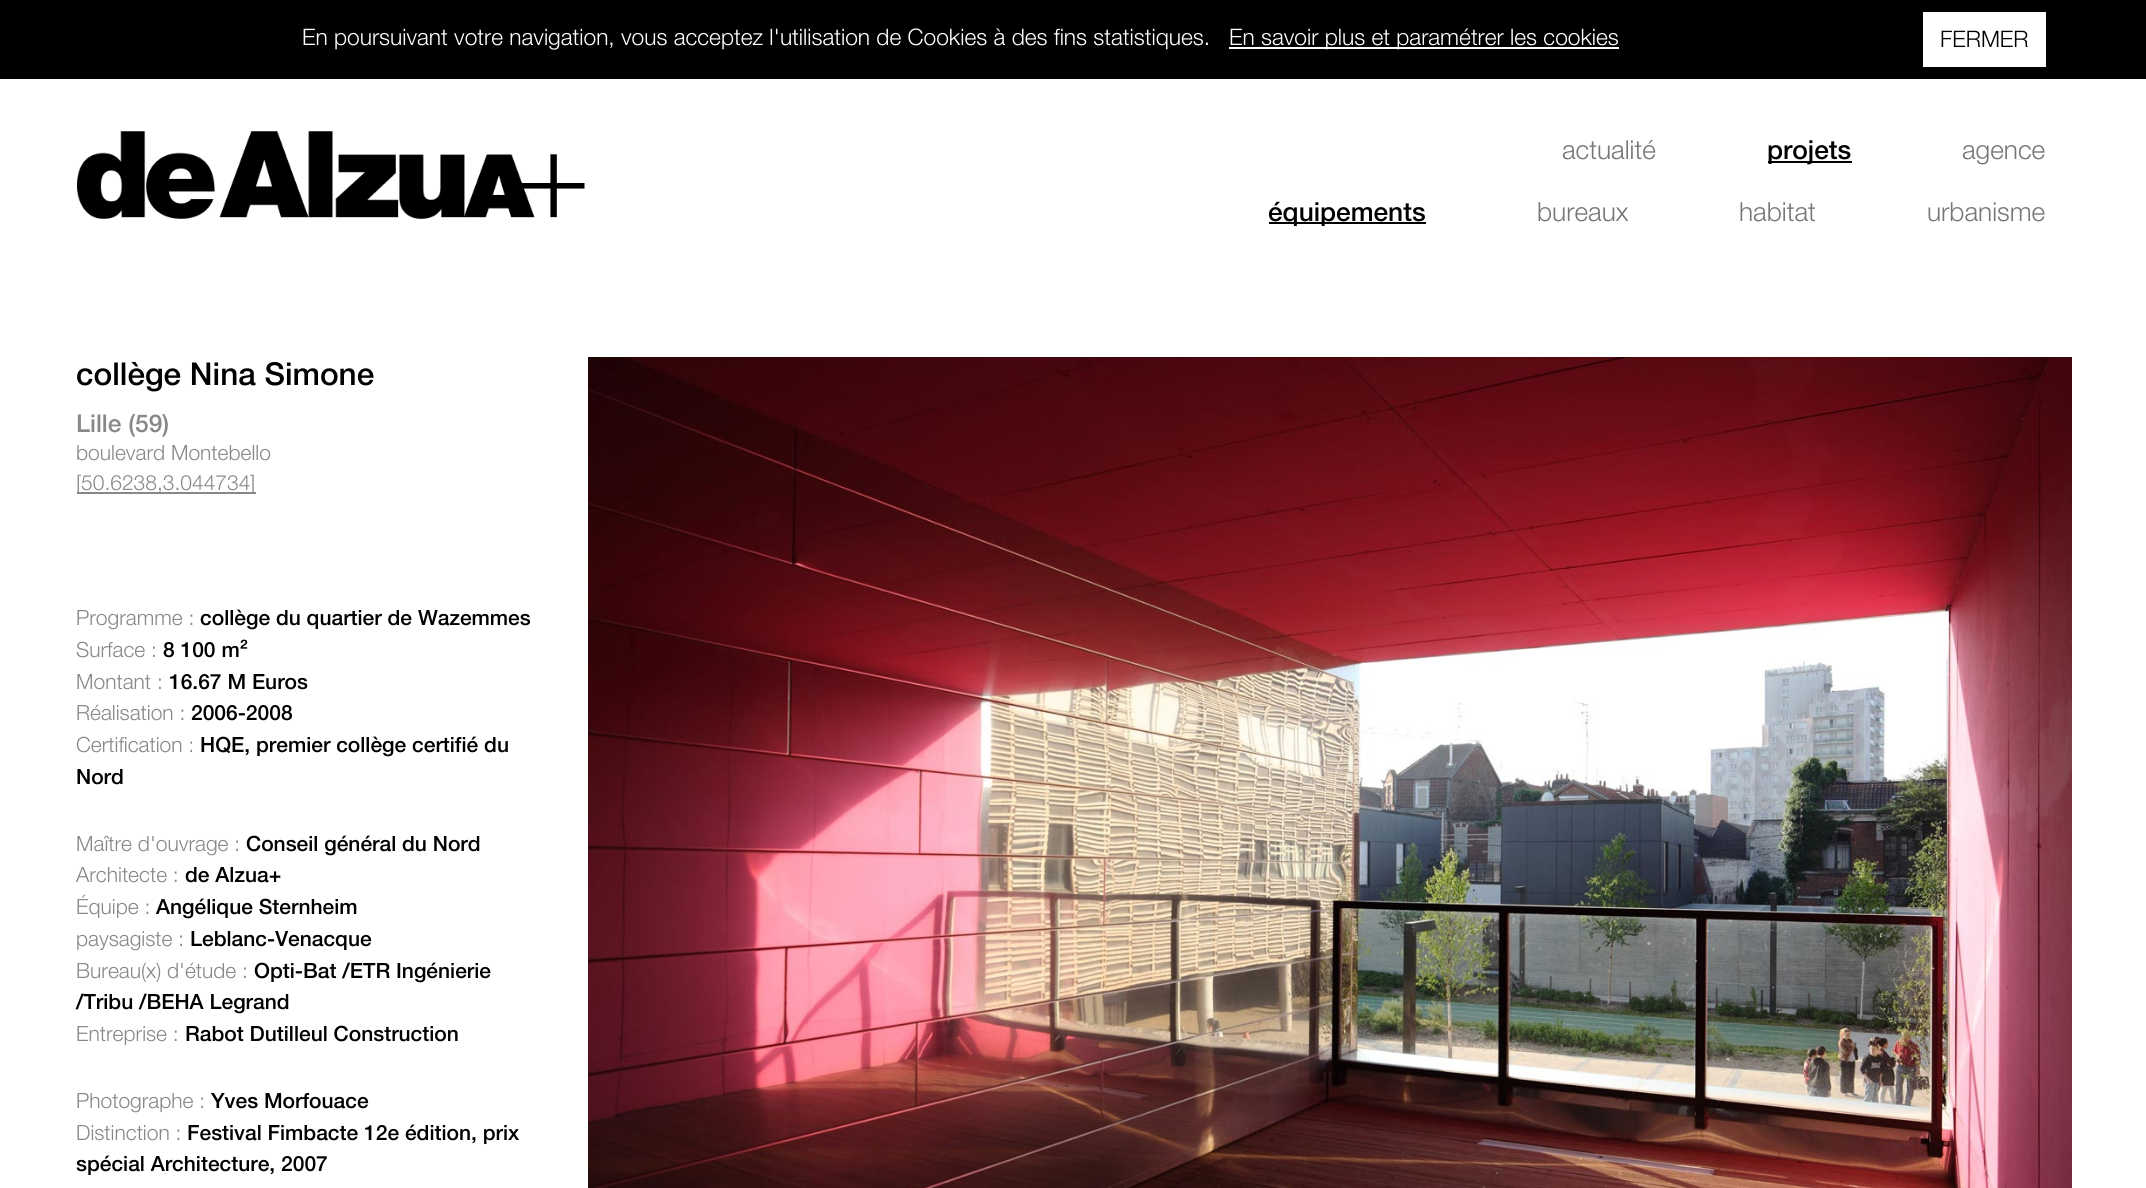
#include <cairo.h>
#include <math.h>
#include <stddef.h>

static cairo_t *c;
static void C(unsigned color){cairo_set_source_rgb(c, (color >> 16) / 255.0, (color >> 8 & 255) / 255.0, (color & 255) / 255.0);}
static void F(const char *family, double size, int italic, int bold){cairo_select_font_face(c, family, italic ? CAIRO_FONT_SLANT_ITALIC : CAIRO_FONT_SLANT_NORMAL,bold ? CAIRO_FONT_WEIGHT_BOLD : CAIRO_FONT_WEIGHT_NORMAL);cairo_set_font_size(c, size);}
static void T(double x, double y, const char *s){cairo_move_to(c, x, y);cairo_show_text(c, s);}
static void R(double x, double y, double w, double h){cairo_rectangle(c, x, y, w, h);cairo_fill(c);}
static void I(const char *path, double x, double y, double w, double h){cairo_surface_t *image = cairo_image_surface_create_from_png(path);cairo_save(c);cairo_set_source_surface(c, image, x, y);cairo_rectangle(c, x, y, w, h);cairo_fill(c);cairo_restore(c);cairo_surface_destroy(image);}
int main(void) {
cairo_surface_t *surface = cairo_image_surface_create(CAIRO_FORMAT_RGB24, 2146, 1188);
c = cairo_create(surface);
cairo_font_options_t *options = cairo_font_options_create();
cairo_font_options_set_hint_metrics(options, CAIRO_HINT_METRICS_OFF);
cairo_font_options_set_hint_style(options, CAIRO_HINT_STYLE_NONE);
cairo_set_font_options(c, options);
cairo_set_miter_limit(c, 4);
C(0xffffff);
cairo_paint(c);
C(0x000000);
R(0,0,2146,79);
F("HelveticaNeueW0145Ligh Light",22.75,0,0);
C(0xffffff);
T(302,45,"En poursuivant votre navigation, vous acceptez l'utilisation de Cookies à des fins statistiques.");
R(1229,47,390,2);
T(1229,45,"En savoir plus et paramétrer les cookies");
R(1923,12,123,55);
C(0x000000);
T(1940,47,"FERMER");
I("1.png",77,131,508,88);
F("HelveticaNeueW0145Ligh Light",26.25,0,0);
C(0x777777);
T(1562,159,"actualité");
C(0x000000);
R(1768,161,84,2);
F("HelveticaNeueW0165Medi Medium",26.25,0,0);
T(1767,159,"projets");
R(1269,222,157,2);
T(1268,221,"équipements");
F("HelveticaNeueW0145Ligh Light",26.25,0,0);
C(0x777777);
T(1537,221,"bureaux");
T(1739,221,"habitat");
T(1927,221,"urbanisme");
T(1962,159,"agence");
F("HelveticaNeueW0165Medi Medium",31.5,0,0);
C(0x000000);
T(76,385,"collège Nina Simone");
F("HelveticaNeueW0165Medi Medium",24.5,0,0);
C(0x888888);
T(76,432,"Lille (59)");
F("HelveticaNeueW0145Ligh Light",21,0,0);
T(76,460,"boulevard Montebello");
R(77,492,179,2);
T(76,490,"[50.6238,3.044734]");
T(76,625,"Programme :");
F("HelveticaNeueW0165Medi Medium",21,0,0);
C(0x000000);
T(200,625,"collège du quartier de Wazemmes");
F("HelveticaNeueW0145Ligh Light",21,0,0);
C(0x888888);
T(76,657,"Surface :");
F("HelveticaNeueW0165Medi Medium",21,0,0);
C(0x000000);
T(163,657,"8 100 m²");
F("HelveticaNeueW0145Ligh Light",21,0,0);
C(0x888888);
T(76,689,"Montant :");
F("HelveticaNeueW0165Medi Medium",21,0,0);
C(0x000000);
T(169,689,"16.67 M Euros");
F("HelveticaNeueW0145Ligh Light",21,0,0);
C(0x888888);
T(76,720,"Réalisation :");
F("HelveticaNeueW0165Medi Medium",21,0,0);
C(0x000000);
T(191,720,"2006-2008");
F("HelveticaNeueW0145Ligh Light",21,0,0);
C(0x888888);
T(76,752,"Certification :");
F("HelveticaNeueW0165Medi Medium",21,0,0);
C(0x000000);
T(200,752,"HQE, premier collège certifié du");
T(76,784,"Nord");
F("HelveticaNeueW0145Ligh Light",21,0,0);
C(0x888888);
T(76,851,"Maître d'ouvrage :");
F("HelveticaNeueW0165Medi Medium",21,0,0);
C(0x000000);
T(246,851,"Conseil général du Nord");
F("HelveticaNeueW0145Ligh Light",21,0,0);
C(0x888888);
T(76,882,"Architecte :");
F("HelveticaNeueW0165Medi Medium",21,0,0);
C(0x000000);
T(185,882,"de Alzua+");
F("HelveticaNeueW0145Ligh Light",21,0,0);
C(0x888888);
T(76,914,"Équipe :");
F("HelveticaNeueW0165Medi Medium",21,0,0);
C(0x000000);
T(156,914,"Angélique Sternheim");
F("HelveticaNeueW0145Ligh Light",21,0,0);
C(0x888888);
T(76,946,"paysagiste :");
F("HelveticaNeueW0165Medi Medium",21,0,0);
C(0x000000);
T(190,946,"Leblanc-Venacque");
F("HelveticaNeueW0145Ligh Light",21,0,0);
C(0x888888);
T(76,978,"Bureau(x) d'étude :");
F("HelveticaNeueW0165Medi Medium",21,0,0);
C(0x000000);
T(254,978,"Opti-Bat /ETR Ingénierie");
T(76,1009,"/Tribu /BEHA Legrand");
F("HelveticaNeueW0145Ligh Light",21,0,0);
C(0x888888);
T(76,1041,"Entreprise :");
F("HelveticaNeueW0165Medi Medium",21,0,0);
C(0x000000);
T(185,1041,"Rabot Dutilleul Construction");
F("HelveticaNeueW0145Ligh Light",21,0,0);
C(0x888888);
T(76,1108,"Photographe :");
F("HelveticaNeueW0165Medi Medium",21,0,0);
C(0x000000);
T(211,1108,"Yves Morfouace");
F("HelveticaNeueW0145Ligh Light",21,0,0);
C(0x888888);
T(76,1140,"Distinction :");
F("HelveticaNeueW0165Medi Medium",21,0,0);
C(0x000000);
T(187,1140,"Festival Fimbacte 12e édition, prix");
T(76,1171,"spécial Architecture, 2007");
I("2.png",588,357,1484,831);
cairo_surface_write_to_png(surface, "o.png");
cairo_font_options_destroy(options);
cairo_destroy(c);
cairo_surface_destroy(surface);
return 0;
}
